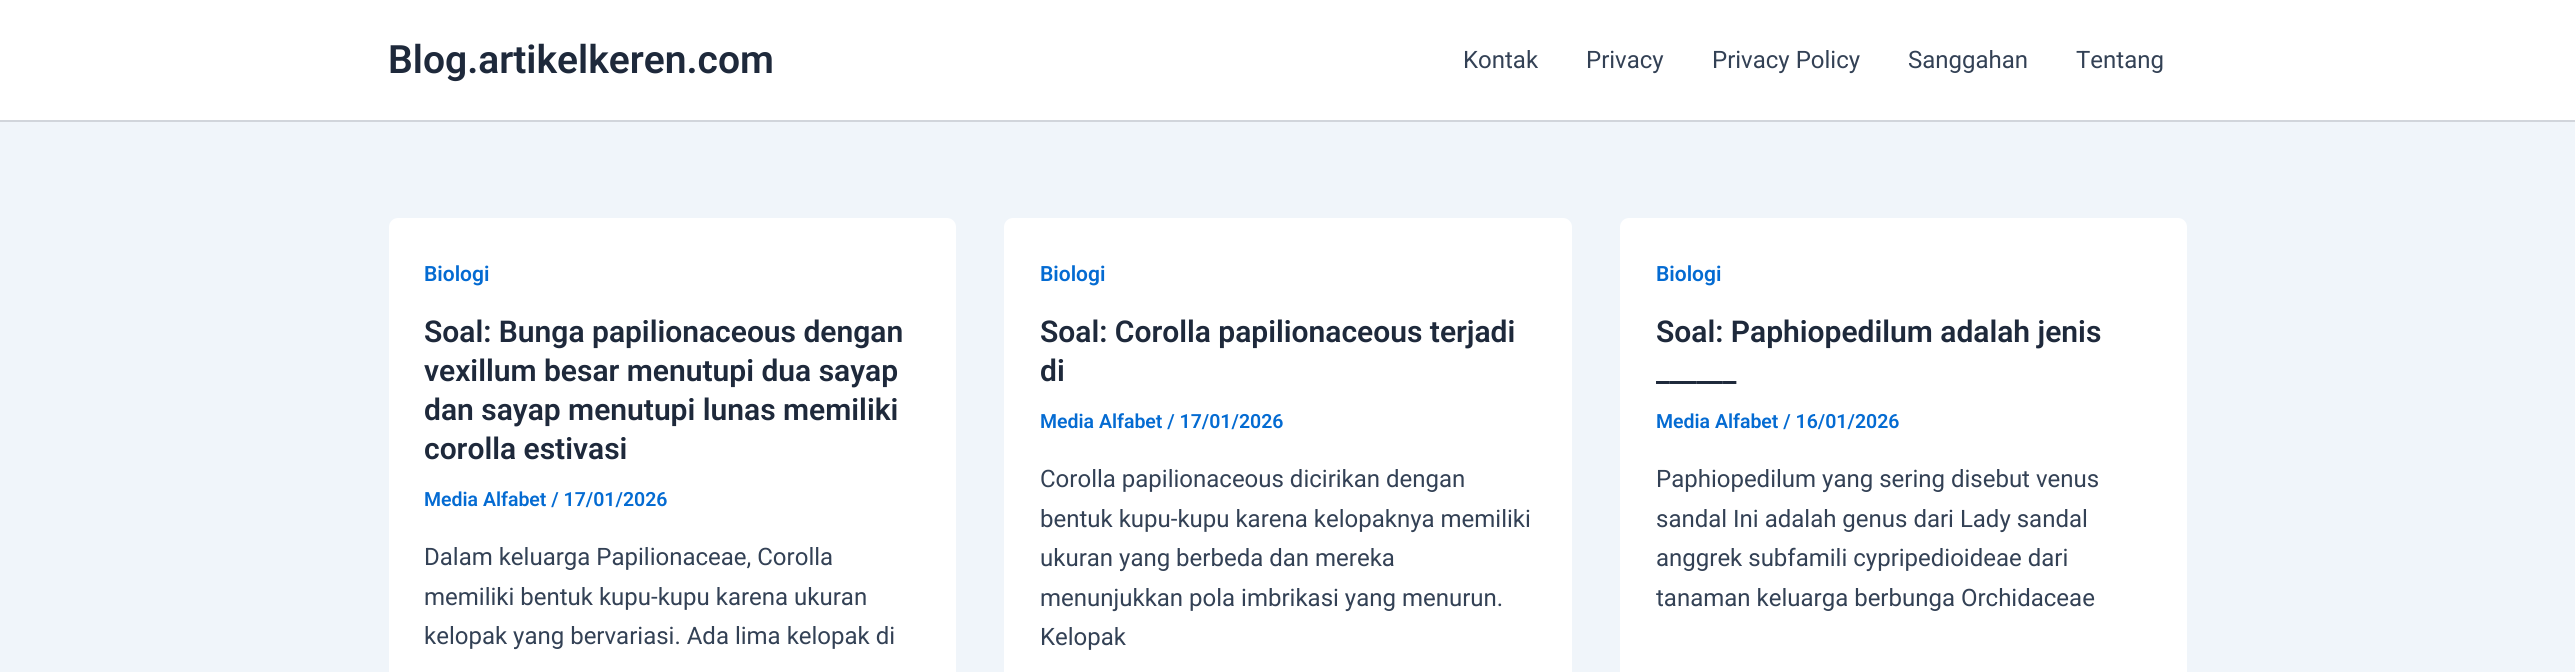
#include <cairo.h>
#include <math.h>
#include <stddef.h>

static cairo_t *c;
static void C(unsigned color){cairo_set_source_rgb(c, (color >> 16) / 255.0, (color >> 8 & 255) / 255.0, (color & 255) / 255.0);}
static void F(const char *family, double size, int italic, int bold){cairo_select_font_face(c, family, italic ? CAIRO_FONT_SLANT_ITALIC : CAIRO_FONT_SLANT_NORMAL,bold ? CAIRO_FONT_WEIGHT_BOLD : CAIRO_FONT_WEIGHT_NORMAL);cairo_set_font_size(c, size);}
static void T(double x, double y, const char *s){cairo_move_to(c, x, y);cairo_show_text(c, s);}
static void R(double x, double y, double w, double h){cairo_rectangle(c, x, y, w, h);cairo_fill(c);}
static void Q(double x, double y, double w, double h, double r){cairo_new_sub_path(c);cairo_arc(c, x + w - r, y + h - r, r, 0, M_PI / 2);cairo_arc(c, x + r, y + h - r, r, M_PI / 2, M_PI);cairo_arc(c, x + r, y + r, r, M_PI, 1.5 * M_PI);cairo_arc(c, x + w - r, y + r, r, 1.5 * M_PI, 2 * M_PI);cairo_close_path(c);}
int main(void) {
cairo_surface_t *surface = cairo_image_surface_create(CAIRO_FORMAT_RGB24, 2575, 672);
c = cairo_create(surface);
cairo_font_options_t *options = cairo_font_options_create();
cairo_font_options_set_hint_metrics(options, CAIRO_HINT_METRICS_OFF);
cairo_font_options_set_hint_style(options, CAIRO_HINT_STYLE_NONE);
cairo_set_font_options(c, options);
cairo_set_miter_limit(c, 4);
C(0xf0f5fa);
cairo_paint(c);
C(0xffffff);
R(0,0,2575,120);
C(0xd1d5db);
R(0,120,2575,2);
F("Roboto SemiBold",39,0,0);
C(0x1e293b);
T(388,73,"Blog.artikelkeren.com");
F("Roboto",24,0,0);
C(0x334155);
T(1463,68,"Kontak");
T(1586,68,"Privacy");
T(1712,68,"Privacy Policy");
T(1908,68,"Sanggahan");
T(2076,68,"Tentang");
C(0xffffff);
Q(389,218,567,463,9);
cairo_fill(c);
F("Roboto SemiBold",21,0,0);
C(0x046bd2);
T(424,281,"Biologi");
F("Roboto SemiBold",30,0,0);
C(0x1e293b);
T(424,342,"Soal: Bunga papilionaceous dengan");
T(424,381,"vexillum besar menutupi dua sayap");
T(424,420,"dan sayap menutupi lunas memiliki");
T(424,459,"corolla estivasi");
F("Roboto SemiBold",19.5,0,0);
C(0x046bd2);
T(424,506,"Media Alfabet / 17/01/2026");
F("Roboto",24,0,0);
C(0x334155);
T(424,565,"Dalam keluarga Papilionaceae, Corolla");
T(424,605,"memiliki bentuk kupu-kupu karena ukuran");
T(424,644,"kelopak yang bervariasi. Ada lima kelopak di");
C(0xffffff);
Q(1004,218,568,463,9);
cairo_fill(c);
F("Roboto SemiBold",21,0,0);
C(0x046bd2);
T(1040,281,"Biologi");
F("Roboto SemiBold",30,0,0);
C(0x1e293b);
T(1040,342,"Soal: Corolla papilionaceous terjadi");
T(1040,381,"di");
F("Roboto SemiBold",19.5,0,0);
C(0x046bd2);
T(1040,428,"Media Alfabet / 17/01/2026");
F("Roboto",24,0,0);
C(0x334155);
T(1040,487,"Corolla papilionaceous dicirikan dengan");
T(1040,527,"bentuk kupu-kupu karena kelopaknya memiliki");
T(1040,566,"ukuran yang berbeda dan mereka");
T(1040,606,"menunjukkan pola imbrikasi yang menurun.");
T(1040,645,"Kelopak");
C(0xffffff);
Q(1620,218,567,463,9);
cairo_fill(c);
F("Roboto SemiBold",21,0,0);
C(0x046bd2);
T(1656,281,"Biologi");
F("Roboto SemiBold",30,0,0);
C(0x1e293b);
T(1656,342,"Soal: Paphiopedilum adalah jenis");
T(1656,381,"______");
F("Roboto SemiBold",19.5,0,0);
C(0x046bd2);
T(1656,428,"Media Alfabet / 16/01/2026");
F("Roboto",24,0,0);
C(0x334155);
T(1656,487,"Paphiopedilum yang sering disebut venus");
T(1656,527,"sandal Ini adalah genus dari Lady sandal");
T(1656,566,"anggrek subfamili cypripedioideae dari");
T(1656,606,"tanaman keluarga berbunga Orchidaceae");
cairo_surface_write_to_png(surface, "o.png");
cairo_font_options_destroy(options);
cairo_destroy(c);
cairo_surface_destroy(surface);
return 0;
}
